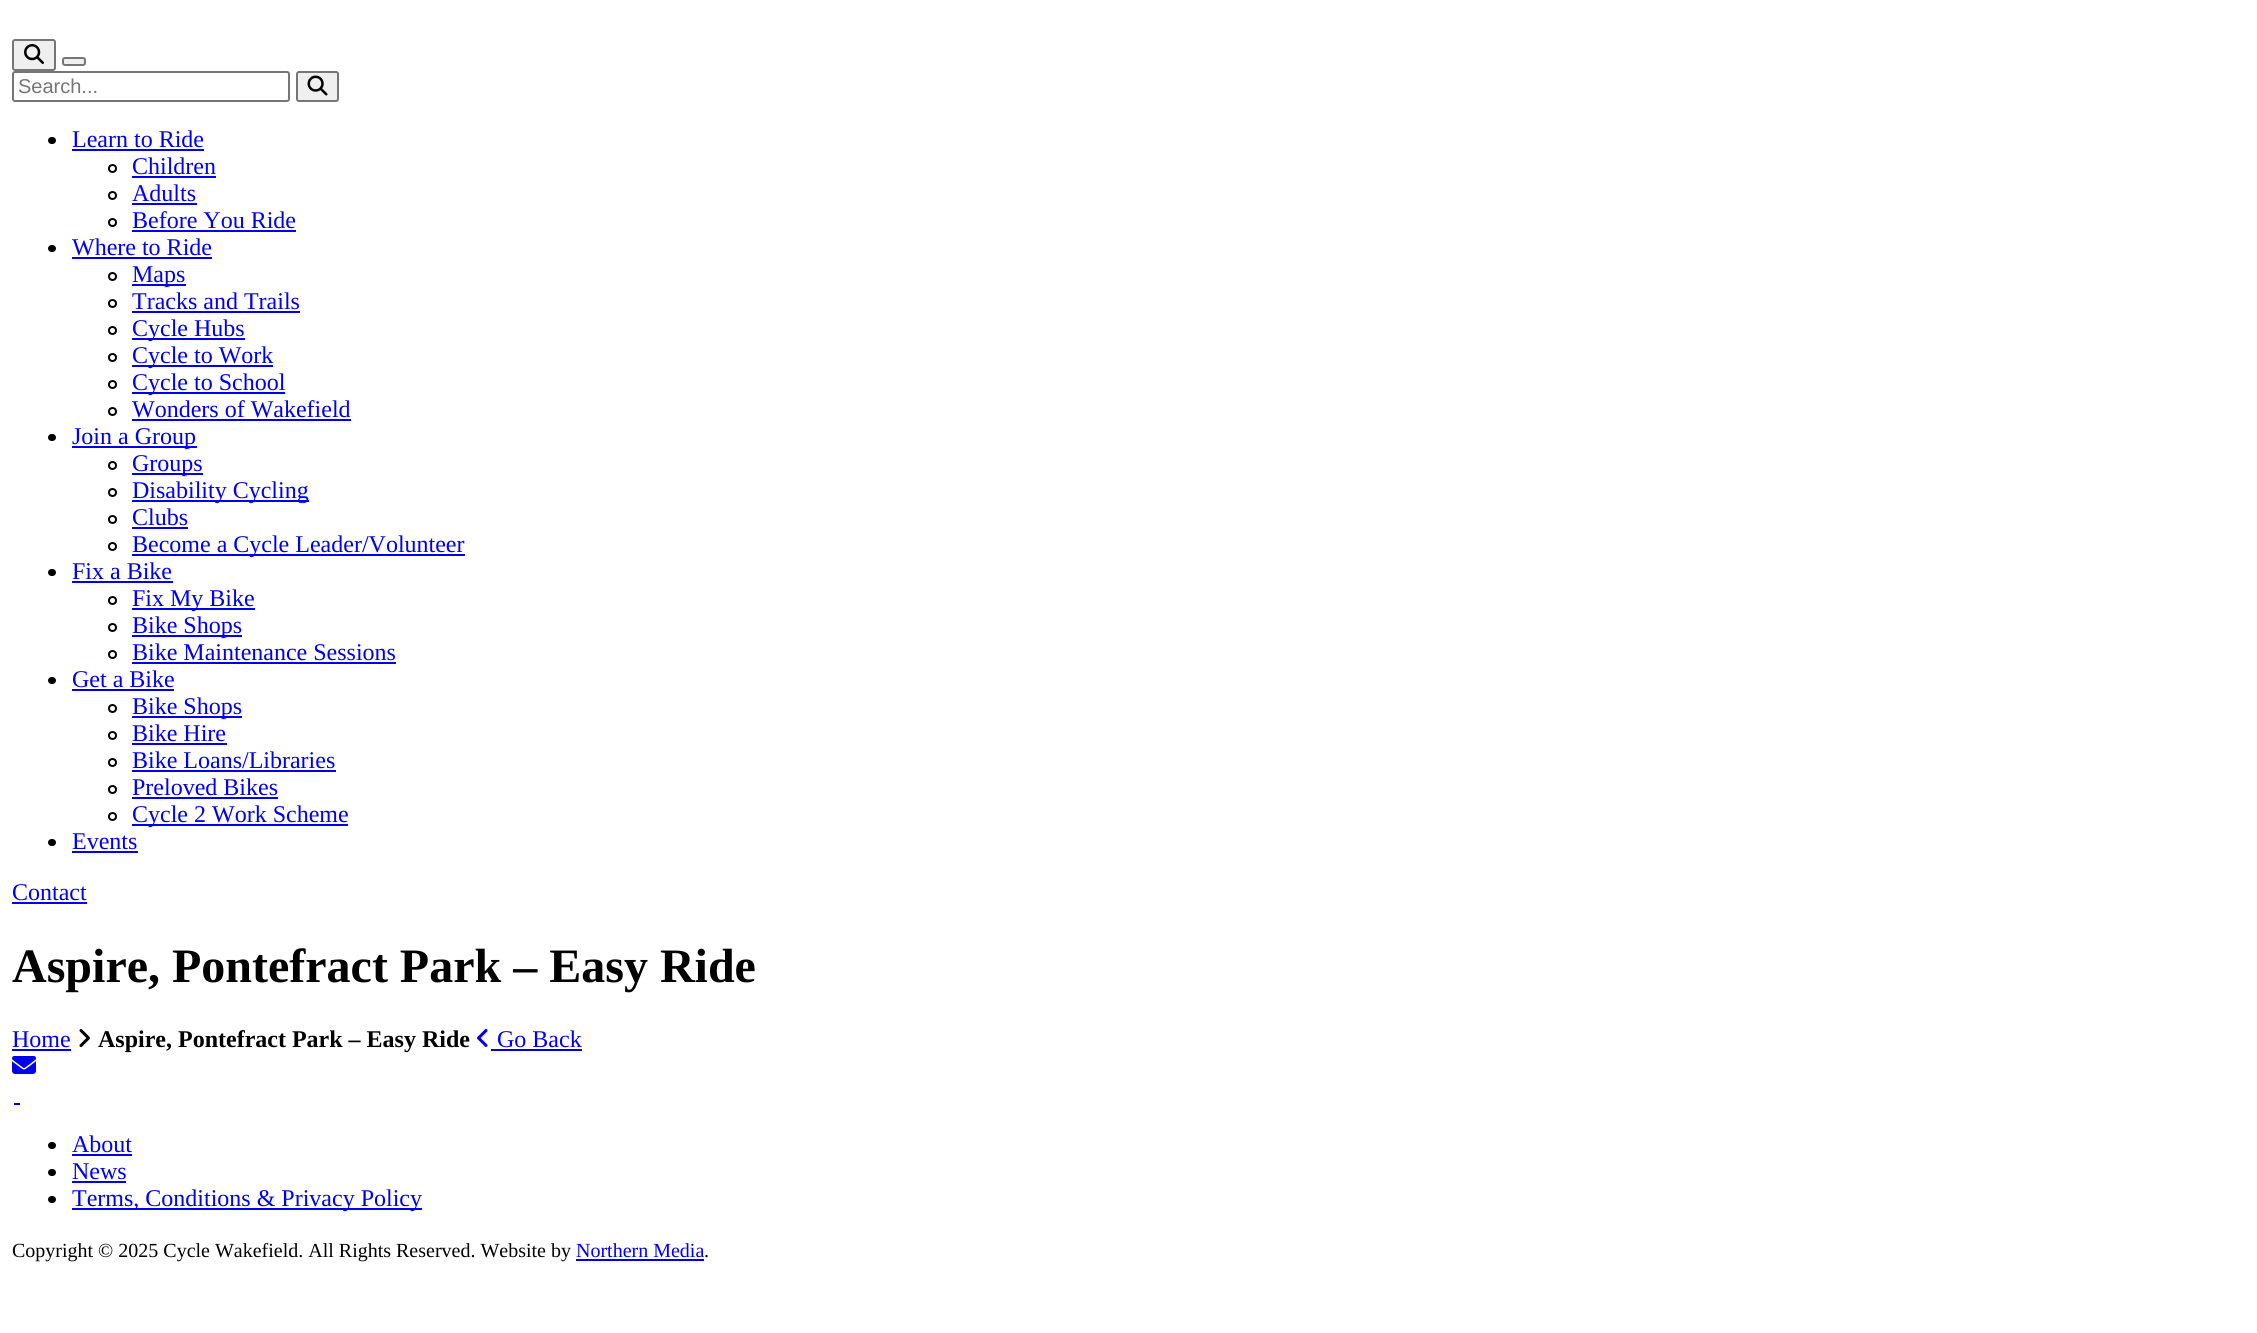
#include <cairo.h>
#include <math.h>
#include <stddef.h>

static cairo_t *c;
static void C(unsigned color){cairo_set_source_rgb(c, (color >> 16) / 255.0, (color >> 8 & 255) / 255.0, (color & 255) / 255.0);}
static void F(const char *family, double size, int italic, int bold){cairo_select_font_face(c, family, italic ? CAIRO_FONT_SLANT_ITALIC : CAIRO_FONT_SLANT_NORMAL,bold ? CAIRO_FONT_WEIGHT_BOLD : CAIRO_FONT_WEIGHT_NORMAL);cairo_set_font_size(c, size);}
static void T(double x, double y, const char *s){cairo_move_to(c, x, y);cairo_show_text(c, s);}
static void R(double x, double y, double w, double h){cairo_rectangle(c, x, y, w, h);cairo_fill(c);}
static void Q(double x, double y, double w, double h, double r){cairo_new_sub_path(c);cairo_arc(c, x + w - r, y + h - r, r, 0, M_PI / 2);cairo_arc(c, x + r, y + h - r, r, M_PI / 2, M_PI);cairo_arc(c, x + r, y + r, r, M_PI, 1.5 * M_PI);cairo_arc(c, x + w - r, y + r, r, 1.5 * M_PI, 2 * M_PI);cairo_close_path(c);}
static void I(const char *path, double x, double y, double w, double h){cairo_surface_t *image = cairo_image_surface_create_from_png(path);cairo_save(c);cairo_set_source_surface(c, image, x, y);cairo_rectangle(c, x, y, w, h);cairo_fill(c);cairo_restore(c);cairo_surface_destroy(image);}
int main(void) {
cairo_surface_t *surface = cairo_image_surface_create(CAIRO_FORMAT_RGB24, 2257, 1333);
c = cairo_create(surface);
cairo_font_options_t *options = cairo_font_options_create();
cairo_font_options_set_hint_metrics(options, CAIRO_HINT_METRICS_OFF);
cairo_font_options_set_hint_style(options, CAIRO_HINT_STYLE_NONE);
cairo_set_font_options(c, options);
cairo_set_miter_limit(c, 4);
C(0xffffff);
cairo_paint(c);
C(0xefefef);
Q(13,40,42,30,2);
cairo_fill_preserve(c);
C(0x767676);
cairo_stroke(c);
I("1.png",24,44,20,20);
C(0xefefef);
Q(63,58,22,7,2);
cairo_fill_preserve(c);
C(0x767676);
cairo_stroke(c);
Q(13,72,276,29,2);
cairo_stroke(c);
F("Liberation Sans",20,0,0);
C(0x757575);
T(18,93,"Search...");
C(0xefefef);
Q(297,72,41,29,2);
cairo_fill_preserve(c);
C(0x767676);
cairo_stroke(c);
I("2.png",307,75,21,21);
C(0x000000);
Q(48,137,8,7,3.5);
cairo_fill(c);
F("Liberation Serif",24,0,0);
C(0x0000ee);
T(72,147,"Learn to Ride");
R(72,149,132,2);
cairo_new_path(c);
cairo_arc(c,112.5,168.5,3.5,0,2 * M_PI);
C(0x000000);
cairo_stroke(c);
C(0x0000ee);
T(132,174,"Children");
R(132,176,84,2);
cairo_new_path(c);
cairo_arc(c,112.5,195.5,3.5,0,2 * M_PI);
C(0x000000);
cairo_stroke(c);
C(0x0000ee);
T(132,201,"Adults");
R(132,203,65,2);
cairo_new_path(c);
cairo_arc(c,112.5,222.5,3.5,0,2 * M_PI);
C(0x000000);
cairo_stroke(c);
C(0x0000ee);
T(132,228,"Before You Ride");
R(132,230,164,2);
C(0x000000);
Q(48,245,8,7,3.5);
cairo_fill(c);
C(0x0000ee);
T(72,255,"Where to Ride");
R(72,257,140,2);
cairo_new_path(c);
cairo_arc(c,112.5,276.5,3.5,0,2 * M_PI);
C(0x000000);
cairo_stroke(c);
C(0x0000ee);
R(132,284,54,2);
T(132,282,"Maps");
cairo_new_path(c);
cairo_arc(c,112.5,303.5,3.5,0,2 * M_PI);
C(0x000000);
cairo_stroke(c);
C(0x0000ee);
T(132,309,"Tracks and Trails");
R(132,311,168,2);
cairo_new_path(c);
cairo_arc(c,112.5,330.5,3.5,0,2 * M_PI);
C(0x000000);
cairo_stroke(c);
C(0x0000ee);
R(132,338,113,2);
T(132,336,"Cycle Hubs");
cairo_new_path(c);
cairo_arc(c,112.5,357.5,3.5,0,2 * M_PI);
C(0x000000);
cairo_stroke(c);
C(0x0000ee);
R(132,365,141,2);
T(132,363,"Cycle to Work");
cairo_new_path(c);
cairo_arc(c,112.5,384.5,3.5,0,2 * M_PI);
C(0x000000);
cairo_stroke(c);
C(0x0000ee);
R(132,392,153,2);
T(132,390,"Cycle to School");
cairo_new_path(c);
cairo_arc(c,112.5,411.5,3.5,0,2 * M_PI);
C(0x000000);
cairo_stroke(c);
C(0x0000ee);
T(132,417,"Wonders of Wakefield");
R(132,419,219,2);
C(0x000000);
Q(48,434,8,7,3.5);
cairo_fill(c);
C(0x0000ee);
R(72,446,125,2);
T(72,444,"Join a Group");
cairo_new_path(c);
cairo_arc(c,112.5,465.5,3.5,0,2 * M_PI);
C(0x000000);
cairo_stroke(c);
C(0x0000ee);
R(132,473,71,2);
T(132,471,"Groups");
cairo_new_path(c);
cairo_arc(c,112.5,492.5,3.5,0,2 * M_PI);
C(0x000000);
cairo_stroke(c);
C(0x0000ee);
R(132,500,177,2);
T(132,498,"Disability Cycling");
cairo_new_path(c);
cairo_arc(c,112.5,519.5,3.5,0,2 * M_PI);
C(0x000000);
cairo_stroke(c);
C(0x0000ee);
T(132,525,"Clubs");
R(132,527,56,2);
cairo_new_path(c);
cairo_arc(c,112.5,546.5,3.5,0,2 * M_PI);
C(0x000000);
cairo_stroke(c);
C(0x0000ee);
R(132,554,333,2);
T(132,552,"Become a Cycle Leader/Volunteer");
C(0x000000);
Q(48,569,8,7,3.5);
cairo_fill(c);
C(0x0000ee);
T(72,579,"Fix a Bike");
R(72,581,101,2);
cairo_new_path(c);
cairo_arc(c,112.5,600.5,3.5,0,2 * M_PI);
C(0x000000);
cairo_stroke(c);
C(0x0000ee);
R(132,608,123,2);
T(132,606,"Fix My Bike");
cairo_new_path(c);
cairo_arc(c,112.5,627.5,3.5,0,2 * M_PI);
C(0x000000);
cairo_stroke(c);
C(0x0000ee);
R(132,635,110,2);
T(132,633,"Bike Shops");
cairo_new_path(c);
cairo_arc(c,112.5,654.5,3.5,0,2 * M_PI);
C(0x000000);
cairo_stroke(c);
C(0x0000ee);
T(132,660,"Bike Maintenance Sessions");
R(132,662,264,2);
C(0x000000);
Q(48,677,8,7,3.5);
cairo_fill(c);
C(0x0000ee);
T(72,687,"Get a Bike");
R(72,689,102,2);
cairo_new_path(c);
cairo_arc(c,112.5,708.5,3.5,0,2 * M_PI);
C(0x000000);
cairo_stroke(c);
C(0x0000ee);
R(132,716,110,2);
T(132,714,"Bike Shops");
cairo_new_path(c);
cairo_arc(c,112.5,735.5,3.5,0,2 * M_PI);
C(0x000000);
cairo_stroke(c);
C(0x0000ee);
T(132,741,"Bike Hire");
R(132,743,95,2);
cairo_new_path(c);
cairo_arc(c,112.5,762.5,3.5,0,2 * M_PI);
C(0x000000);
cairo_stroke(c);
C(0x0000ee);
T(132,768,"Bike Loans/Libraries");
R(132,770,204,2);
cairo_new_path(c);
cairo_arc(c,112.5,789.5,3.5,0,2 * M_PI);
C(0x000000);
cairo_stroke(c);
C(0x0000ee);
T(132,795,"Preloved Bikes");
R(132,797,146,2);
cairo_new_path(c);
cairo_arc(c,112.5,816.5,3.5,0,2 * M_PI);
C(0x000000);
cairo_stroke(c);
C(0x0000ee);
R(132,824,216,2);
T(132,822,"Cycle 2 Work Scheme");
C(0x000000);
Q(48,839,8,7,3.5);
cairo_fill(c);
C(0x0000ee);
T(72,849,"Events");
R(72,851,66,2);
T(12,900,"Contact");
R(12,902,75,2);
F("Liberation Serif",48,0,1);
C(0x000000);
T(12,982,"Aspire, Pontefract Park – Easy Ride");
F("Liberation Serif",24,0,0);
C(0x0000ee);
T(12,1047,"Home");
R(12,1049,59,2);
I("3.png",79,1029,11,18);
F("Liberation Serif",24,0,1);
C(0x000000);
T(98,1047,"Aspire, Pontefract Park – Easy Ride");
I("4.png",477,1029,11,18);
F("Liberation Serif",24,0,0);
C(0x0000ee);
T(497,1047,"Go Back");
R(491,1049,91,2);
I("5.png",12,1056,24,18);
R(14,1103,6,2);
C(0x000000);
Q(48,1142,8,7,3.5);
cairo_fill(c);
C(0x0000ee);
T(72,1152,"About");
R(72,1154,60,2);
C(0x000000);
Q(48,1169,8,7,3.5);
cairo_fill(c);
C(0x0000ee);
T(72,1179,"News");
R(72,1181,54,2);
C(0x000000);
Q(48,1196,8,7,3.5);
cairo_fill(c);
C(0x0000ee);
R(72,1208,350,2);
T(72,1206,"Terms, Conditions & Privacy Policy");
F("Liberation Serif",20,0,0);
C(0x000000);
T(12,1257,"Copyright © 2025 Cycle Wakefield. All Rights Reserved. Website by");
C(0x0000ee);
T(576,1257,"Northern Media");
C(0x000000);
T(704,1257,".");
C(0x0000ee);
R(576,1259,128,2);
cairo_surface_write_to_png(surface, "o.png");
cairo_font_options_destroy(options);
cairo_destroy(c);
cairo_surface_destroy(surface);
return 0;
}
